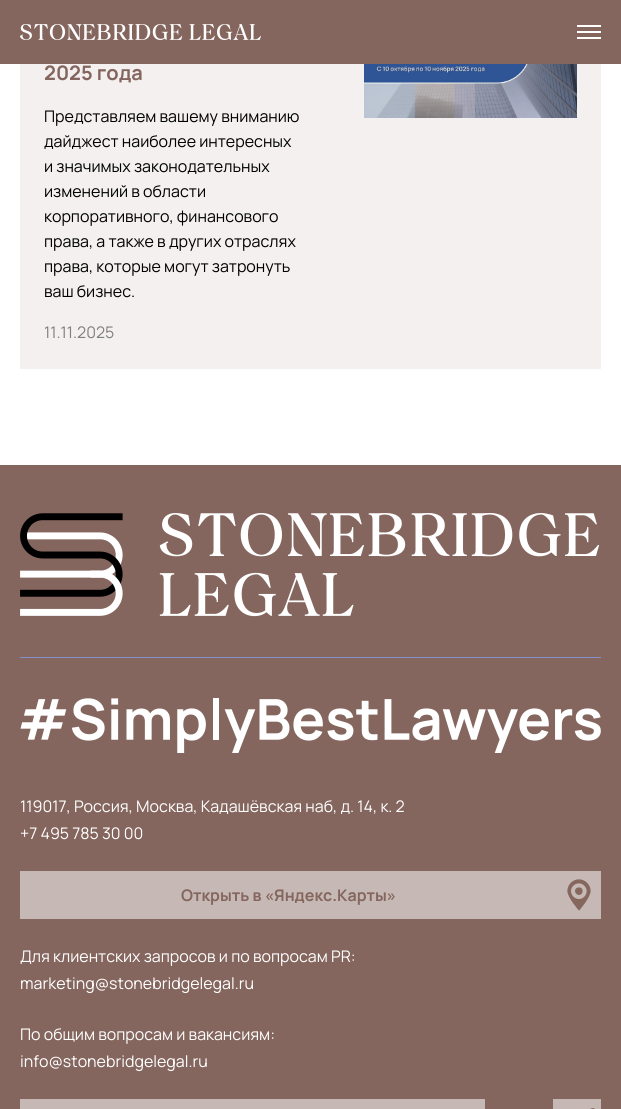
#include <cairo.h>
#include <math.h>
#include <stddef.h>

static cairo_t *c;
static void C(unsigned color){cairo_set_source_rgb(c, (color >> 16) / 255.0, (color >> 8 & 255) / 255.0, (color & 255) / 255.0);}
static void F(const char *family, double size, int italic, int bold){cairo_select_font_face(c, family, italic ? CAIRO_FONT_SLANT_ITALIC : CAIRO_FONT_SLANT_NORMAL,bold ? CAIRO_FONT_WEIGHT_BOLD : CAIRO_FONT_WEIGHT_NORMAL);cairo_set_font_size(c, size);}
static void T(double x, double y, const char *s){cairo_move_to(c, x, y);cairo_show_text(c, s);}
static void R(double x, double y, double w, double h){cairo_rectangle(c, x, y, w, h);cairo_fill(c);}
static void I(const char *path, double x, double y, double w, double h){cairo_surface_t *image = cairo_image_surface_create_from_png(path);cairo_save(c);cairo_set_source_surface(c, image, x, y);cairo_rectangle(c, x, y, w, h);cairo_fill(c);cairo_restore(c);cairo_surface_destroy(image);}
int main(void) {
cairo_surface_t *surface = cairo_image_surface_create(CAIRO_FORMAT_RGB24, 621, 1109);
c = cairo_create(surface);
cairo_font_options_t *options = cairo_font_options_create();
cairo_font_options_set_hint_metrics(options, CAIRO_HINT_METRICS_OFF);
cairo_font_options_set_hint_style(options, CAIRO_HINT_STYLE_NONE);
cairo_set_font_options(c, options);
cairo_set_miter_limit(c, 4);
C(0xffffff);
cairo_paint(c);
C(0x84665e);
R(0,0,621,64);
I("1.png",20,24,241,16);
C(0xffffff);
R(577,25,24,2);
R(577,31,24,2);
R(577,37,24,2);
C(0xf3f0ef);
R(20,64,581,305);
F("Manrope",20,0,1);
C(0x84665e);
T(44,80,"2025 года");
F("Manrope",16,0,0);
C(0x000000);
T(44,122,"Представляем вашему вниманию");
T(44,147,"дайджест наиболее интересных");
T(44,172,"и значимых законодательных");
T(44,197,"изменений в области");
T(44,222,"корпоративного, финансового");
T(44,247,"права, а также в других отраслях");
T(44,272,"права, которые могут затронуть");
T(44,297,"ваш бизнес.");
C(0x808080);
T(44,338,"11.11.2025");
I("2.png",364,64,213,54);
C(0x84665e);
R(0,465,621,644);
I("3.png",20,513,580,104);
C(0x8591c8);
R(20,657,581,1);
I("4.png",20,698,581,55);
C(0xffffff);
T(20,812,"119017, Россия, Москва, Кадашёвская наб, д. 14, к. 2");
T(20,839,"+7 495 785 30 00");
C(0xc6b9b5);
R(20,871,581,48);
F("Manrope",16,0,1);
C(0x84665e);
T(181,901,"Открыть в «Яндекс.Карты»");
I("5.png",567,879,24,32);
F("Manrope",16,0,0);
C(0xffffff);
T(20,962,"Для клиентских запросов и по вопросам PR:");
T(20,989,"marketing@stonebridgelegal.ru");
T(20,1040,"По общим вопросам и вакансиям:");
T(20,1067,"info@stonebridgelegal.ru");
C(0xc6b9b5);
R(20,1099,465,10);
R(553,1099,48,10);
I("6.png",590,1108,5,1);
cairo_surface_write_to_png(surface, "o.png");
cairo_font_options_destroy(options);
cairo_destroy(c);
cairo_surface_destroy(surface);
return 0;
}
